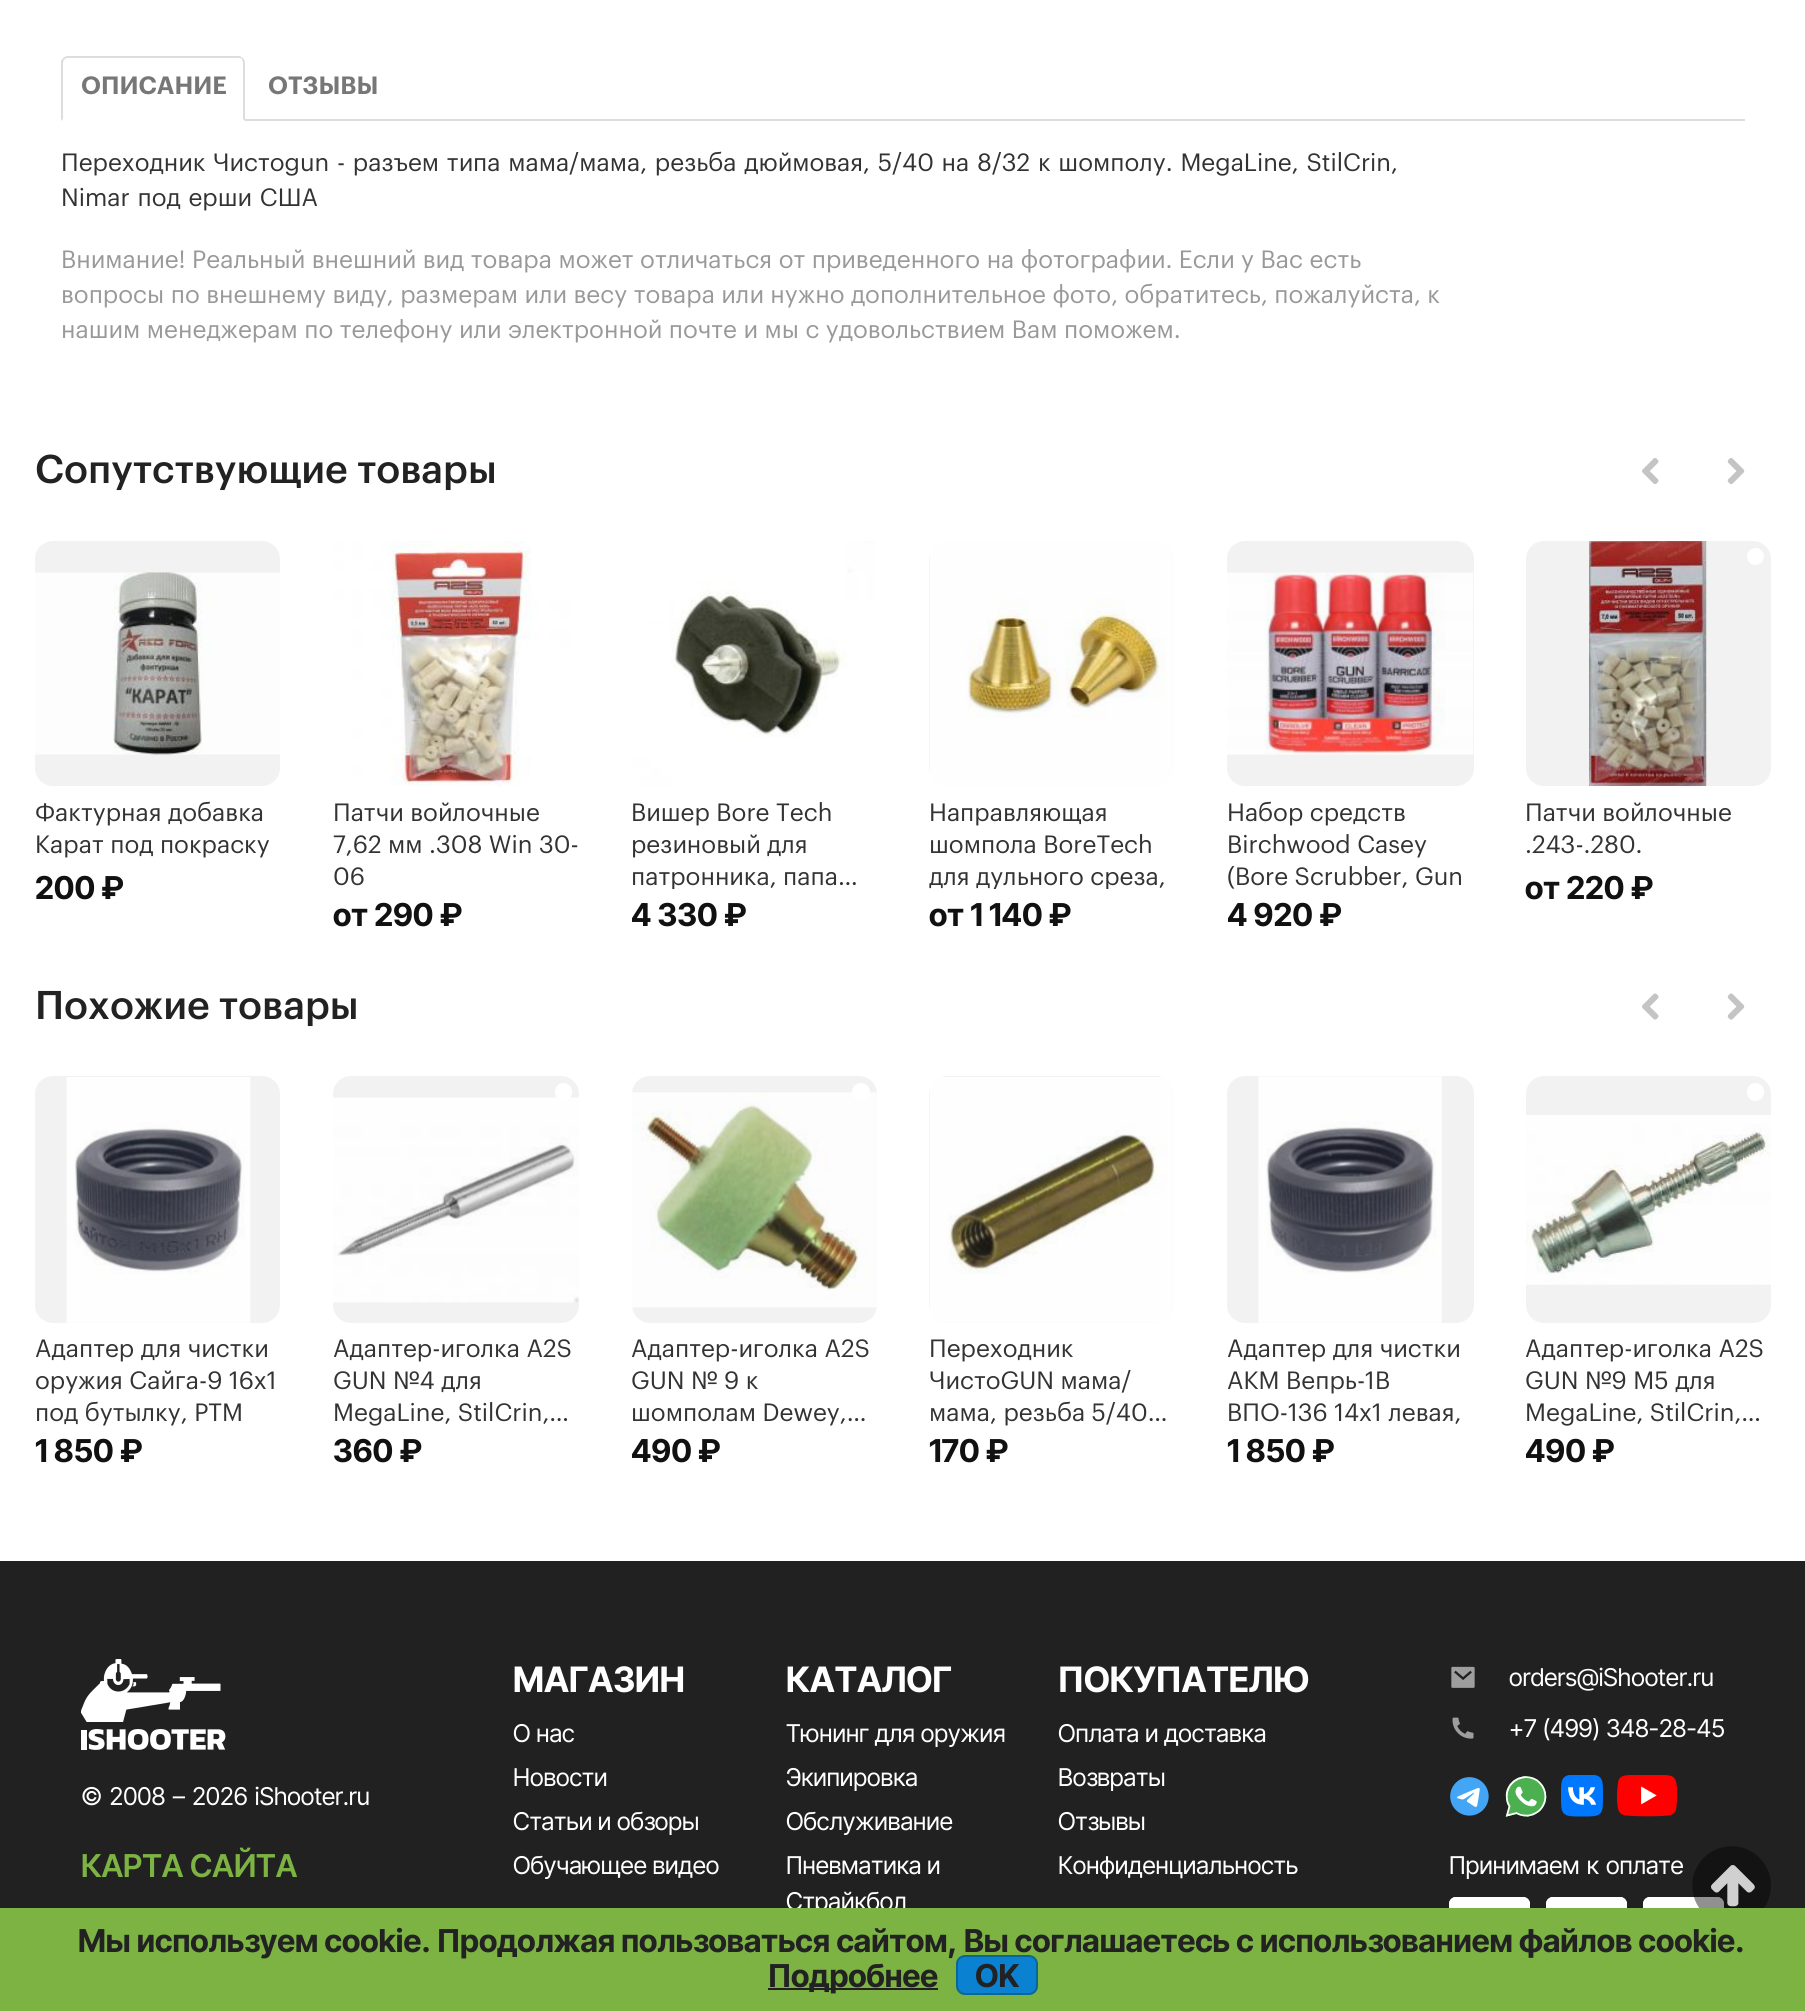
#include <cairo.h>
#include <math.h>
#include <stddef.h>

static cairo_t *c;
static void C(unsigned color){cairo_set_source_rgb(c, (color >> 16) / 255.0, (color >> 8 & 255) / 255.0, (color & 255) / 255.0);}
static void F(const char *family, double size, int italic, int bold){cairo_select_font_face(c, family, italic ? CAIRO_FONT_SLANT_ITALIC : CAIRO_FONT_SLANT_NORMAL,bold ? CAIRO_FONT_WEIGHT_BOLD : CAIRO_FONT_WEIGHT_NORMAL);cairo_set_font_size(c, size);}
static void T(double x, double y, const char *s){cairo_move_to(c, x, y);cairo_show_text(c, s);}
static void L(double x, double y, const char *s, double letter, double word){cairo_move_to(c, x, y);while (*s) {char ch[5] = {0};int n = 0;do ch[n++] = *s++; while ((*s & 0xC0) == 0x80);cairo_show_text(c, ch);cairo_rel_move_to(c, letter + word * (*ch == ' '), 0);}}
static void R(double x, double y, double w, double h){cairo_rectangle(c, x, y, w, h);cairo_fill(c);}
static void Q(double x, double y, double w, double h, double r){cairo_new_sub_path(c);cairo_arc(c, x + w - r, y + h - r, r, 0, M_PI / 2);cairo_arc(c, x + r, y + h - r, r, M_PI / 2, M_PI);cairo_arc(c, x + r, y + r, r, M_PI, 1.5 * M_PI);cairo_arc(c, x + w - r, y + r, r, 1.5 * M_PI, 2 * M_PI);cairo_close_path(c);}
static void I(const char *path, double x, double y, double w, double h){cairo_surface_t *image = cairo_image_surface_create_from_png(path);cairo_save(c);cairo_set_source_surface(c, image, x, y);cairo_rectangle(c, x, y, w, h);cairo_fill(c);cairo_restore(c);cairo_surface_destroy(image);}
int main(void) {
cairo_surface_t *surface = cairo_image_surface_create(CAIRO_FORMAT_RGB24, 1805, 2011);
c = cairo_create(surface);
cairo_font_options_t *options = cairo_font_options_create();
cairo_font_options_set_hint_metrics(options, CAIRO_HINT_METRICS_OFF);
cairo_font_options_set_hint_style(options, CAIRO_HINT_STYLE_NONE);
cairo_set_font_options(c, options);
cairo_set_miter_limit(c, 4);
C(0xffffff);
cairo_paint(c);
C(0xdddddd);
R(245,119,1500,2);
cairo_new_path(c);
cairo_move_to(c,68,56);
cairo_curve_to(c,66,56,64,57,63,58);
cairo_line_to(c,65,59);
cairo_line_to(c,67,58);
cairo_line_to(c,238,58);
cairo_curve_to(c,239,58,241,58,242,59);
cairo_line_to(c,243,58);
cairo_curve_to(c,242,57,240,56,238,56);
cairo_close_path(c);
cairo_fill(c);
cairo_new_path(c);
cairo_move_to(c,245,121);
cairo_line_to(c,245,63);
cairo_curve_to(c,245,61,244,59,243,58);
cairo_line_to(c,242,59);
cairo_curve_to(c,242,60,243,62,243,63);
cairo_line_to(c,243,119);
cairo_close_path(c);
cairo_fill(c);
cairo_new_path(c);
cairo_move_to(c,61,121);
cairo_line_to(c,61,61);
cairo_line_to(c,63,58);
cairo_line_to(c,65,59);
cairo_curve_to(c,64,60,63,61,63,63);
cairo_line_to(c,63,119);
cairo_close_path(c);
cairo_fill(c);
F("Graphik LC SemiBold",24.5,0,0);
C(0x777777);
T(81,94,"ОПИСАНИЕ");
T(268,94,"ОТЗЫВЫ");
F("Graphik LC",24.5,0,0);
C(0x333333);
L(61,171,"Переходник Чистоgun - разъем типа мама/мама, резьба дюймовая, 5/40 на 8/32 к шомполу. MegaLine, StilCrin,",0,1.25);
L(61,206,"Nimar под ерши США",0,1.25);
C(0x999999);
T(61,268,"Внимание! Реальный внешний вид товара может отличаться от приведенного на фотографии. Если у Вас есть");
T(61,303,"вопросы по внешнему виду, размерам или весу товара или нужно дополнительное фото, обратитесь, пожалуйста, к");
T(61,338,"нашим менеджерам по телефону или электронной почте и мы с удовольствием Вам поможем.");
F("Graphik LC Medium",39.25,0,0);
C(0x222222);
T(35,483,"Сопутствующие товары");
I("1.png",1642,458,17,26);
I("2.png",1727,458,18,26);
C(0xf2f2f2);
Q(35,541,245,245,18);
cairo_fill(c);
I("3.png",35,572,245,183);
F("Graphik LC",24.5,0,0);
C(0x333333);
T(35,821,"Фактурная добавка");
T(35,853,"Карат под покраску");
F("Inter Tight",31.5,0,1);
C(0x111111);
T(35,899,"200 ₽");
I("4.png",333,541,246,245);
F("Graphik LC",24.5,0,0);
C(0x333333);
T(333,821,"Патчи войлочные");
T(333,853,"7,62 мм .308 Win 30-");
T(333,885,"06");
F("Inter Tight",31.5,0,1);
C(0x111111);
T(333,926,"от 290 ₽");
I("5.png",632,541,245,245);
F("Graphik LC",24.5,0,0);
C(0x333333);
T(631,821,"Вишер Bore Tech");
T(631,853,"резиновый для");
cairo_save(c);
cairo_rectangle(c,632,795,245,94);
cairo_clip(c);
T(631,885,"патронника, папа…");
cairo_restore(c);
F("Inter Tight",31.5,0,1);
C(0x111111);
T(631,926,"4 330 ₽");
C(0xf2f2f2);
Q(929,541,245,245,18);
cairo_fill(c);
I("6.png",929,541,245,245);
F("Graphik LC",24.5,0,0);
C(0x333333);
T(929,821,"Направляющая");
T(929,853,"шомпола BoreTech");
cairo_save(c);
cairo_rectangle(c,929,795,245,94);
cairo_clip(c);
T(929,885,"для дульного среза,");
cairo_restore(c);
F("Inter Tight",31.5,0,1);
C(0x111111);
T(929,926,"от 1 140 ₽");
C(0xf2f2f2);
Q(1227,541,247,245,18);
cairo_fill(c);
I("7.png",1227,572,247,183);
F("Graphik LC",24.5,0,0);
C(0x333333);
T(1227,821,"Набор средств");
T(1227,853,"Birchwood Casey");
T(1227,885,"(Bore Scrubber, Gun");
F("Inter Tight",31.5,0,1);
C(0x111111);
T(1227,926,"4 920 ₽");
C(0xf2f2f2);
Q(1526,541,245,245,18);
cairo_fill(c);
I("8.png",1589,541,118,245);
C(0xffffff);
cairo_arc(c,1755.5,556.5,8.5,0,2 * M_PI);
cairo_fill(c);
F("Graphik LC",24.5,0,0);
C(0x333333);
T(1525,821,"Патчи войлочные");
T(1525,853,".243-.280.");
F("Inter Tight",31.5,0,1);
C(0x111111);
T(1525,899,"от 220 ₽");
F("Graphik LC Medium",39.25,0,0);
C(0x222222);
T(35,1019,"Похожие товары");
I("9.png",1642,993,17,27);
I("10.png",1727,993,18,27);
C(0xf2f2f2);
Q(35,1076,245,247,18);
cairo_fill(c);
I("11.png",66,1077,185,246);
F("Graphik LC",24.5,0,0);
C(0x333333);
T(35,1357,"Адаптер для чистки");
T(35,1389,"оружия Сайга-9 16х1");
T(35,1421,"под бутылку, РТМ");
F("Inter Tight",31.5,0,1);
C(0x111111);
T(35,1462,"1 850 ₽");
C(0xf2f2f2);
Q(333,1076,246,247,18);
cairo_fill(c);
I("12.png",333,1097,246,206);
C(0xffffff);
Q(555,1083,17,18,8.5);
cairo_fill(c);
F("Graphik LC",24.5,0,0);
C(0x333333);
T(333,1357,"Адаптер-иголка A2S");
T(333,1389,"GUN №4 для");
T(333,1421,"MegaLine, StilCrin,…");
F("Inter Tight",31.5,0,1);
C(0x111111);
T(333,1462,"360 ₽");
C(0xf2f2f2);
Q(632,1076,245,247,18);
cairo_fill(c);
I("13.png",632,1092,245,216);
C(0xffffff);
cairo_arc(c,861,1092,9,0,2 * M_PI);
cairo_fill(c);
F("Graphik LC",24.5,0,0);
C(0x333333);
T(631,1357,"Адаптер-иголка A2S");
T(631,1389,"GUN № 9 к");
T(631,1421,"шомполам Dewey,…");
F("Inter Tight",31.5,0,1);
C(0x111111);
T(631,1462,"490 ₽");
C(0xf2f2f2);
Q(929,1076,245,247,18);
cairo_fill(c);
I("14.png",929,1077,245,246);
F("Graphik LC",24.5,0,0);
C(0x333333);
T(929,1357,"Переходник");
T(929,1389,"ЧистоGUN мама/");
T(929,1421,"мама, резьба 5/40…");
F("Inter Tight",31.5,0,1);
C(0x111111);
T(929,1462,"170 ₽");
C(0xf2f2f2);
Q(1227,1076,247,247,18);
cairo_fill(c);
I("15.png",1258,1076,184,247);
F("Graphik LC",24.5,0,0);
C(0x333333);
T(1227,1357,"Адаптер для чистки");
T(1227,1389,"АКМ Вепрь-1В");
T(1227,1421,"ВПО-136 14х1 левая,");
F("Inter Tight",31.5,0,1);
C(0x111111);
T(1227,1462,"1 850 ₽");
C(0xf2f2f2);
Q(1526,1076,245,247,18);
cairo_fill(c);
I("16.png",1526,1115,245,170);
C(0xffffff);
Q(1747,1083,17,18,8.5);
cairo_fill(c);
F("Graphik LC",24.5,0,0);
C(0x333333);
T(1525,1357,"Адаптер-иголка A2S");
T(1525,1389,"GUN №9 M5 для");
T(1525,1421,"MegaLine, StilCrin,…");
F("Inter Tight",31.5,0,1);
C(0x111111);
T(1525,1462,"490 ₽");
C(0x212121);
R(0,1561,1805,347);
I("17.png",81,1659,145,91);
F("Inter Tight",24.5,0,0);
C(0xffffff);
L(81,1805,"© 2008 – 2026 iShooter.ru",0,1.5);
F("Inter Tight SemiBold",31.5,0,0);
C(0x7cb342);
T(81,1877,"КАРТА САЙТА");
F("Inter Tight",35,0,1);
C(0xffffff);
T(513,1692,"МАГАЗИН");
F("Inter Tight",24.5,0,0);
T(513,1742,"О нас");
T(513,1786,"Новости");
T(513,1830,"Статьи и обзоры");
T(513,1874,"Обучающее видео");
F("Inter Tight",35,0,1);
T(786,1692,"КАТАЛОГ");
F("Inter Tight",24.5,0,0);
T(786,1742,"Тюнинг для оружия");
T(786,1786,"Экипировка");
T(786,1830,"Обслуживание");
T(786,1874,"Пневматика и");
T(786,1910,"Страйкбол");
F("Inter Tight",35,0,1);
T(1058,1692,"ПОКУПАТЕЛЮ");
F("Inter Tight",24.5,0,0);
T(1058,1742,"Оплата и доставка");
T(1058,1786,"Возвраты");
T(1058,1830,"Отзывы");
T(1058,1874,"Конфиденциальность");
I("18.png",1451,1666,24,22);
T(1509,1686,"orders@iShooter.ru");
I("19.png",1452,1717,22,22);
T(1509,1737,"+7 (499) 348-28-45");
I("20.png",1450,1777,39,39);
I("21.png",1505,1776,42,41);
I("22.png",1561,1775,42,42);
I("23.png",1617,1775,60,42);
L(1449,1874,"Принимаем к оплате",0,1.5);
I("24.png",1449,1897,81,11);
I("24.png",1546,1897,81,11);
I("24.png",1643,1897,81,11);
I("25.png",1692,1846,79,62);
C(0x7cb342);
R(0,1908,1805,103);
F("Inter Tight",31.5,0,1);
C(0x222222);
T(78,1952,"Мы используем cookie. Продолжая пользоваться сайтом, Вы соглашаетесь с использованием файлов cookie.");
C(0x212121);
R(768,1988,170,2);
C(0x222222);
T(768,1987,"Подробнее");
C(0x0b81d2);
Q(957,1956,80,38,8);
cairo_fill_preserve(c);
C(0x076799);
cairo_stroke(c);
C(0x222222);
T(975,1987,"OK");
cairo_surface_write_to_png(surface, "o.png");
cairo_font_options_destroy(options);
cairo_destroy(c);
cairo_surface_destroy(surface);
return 0;
}
